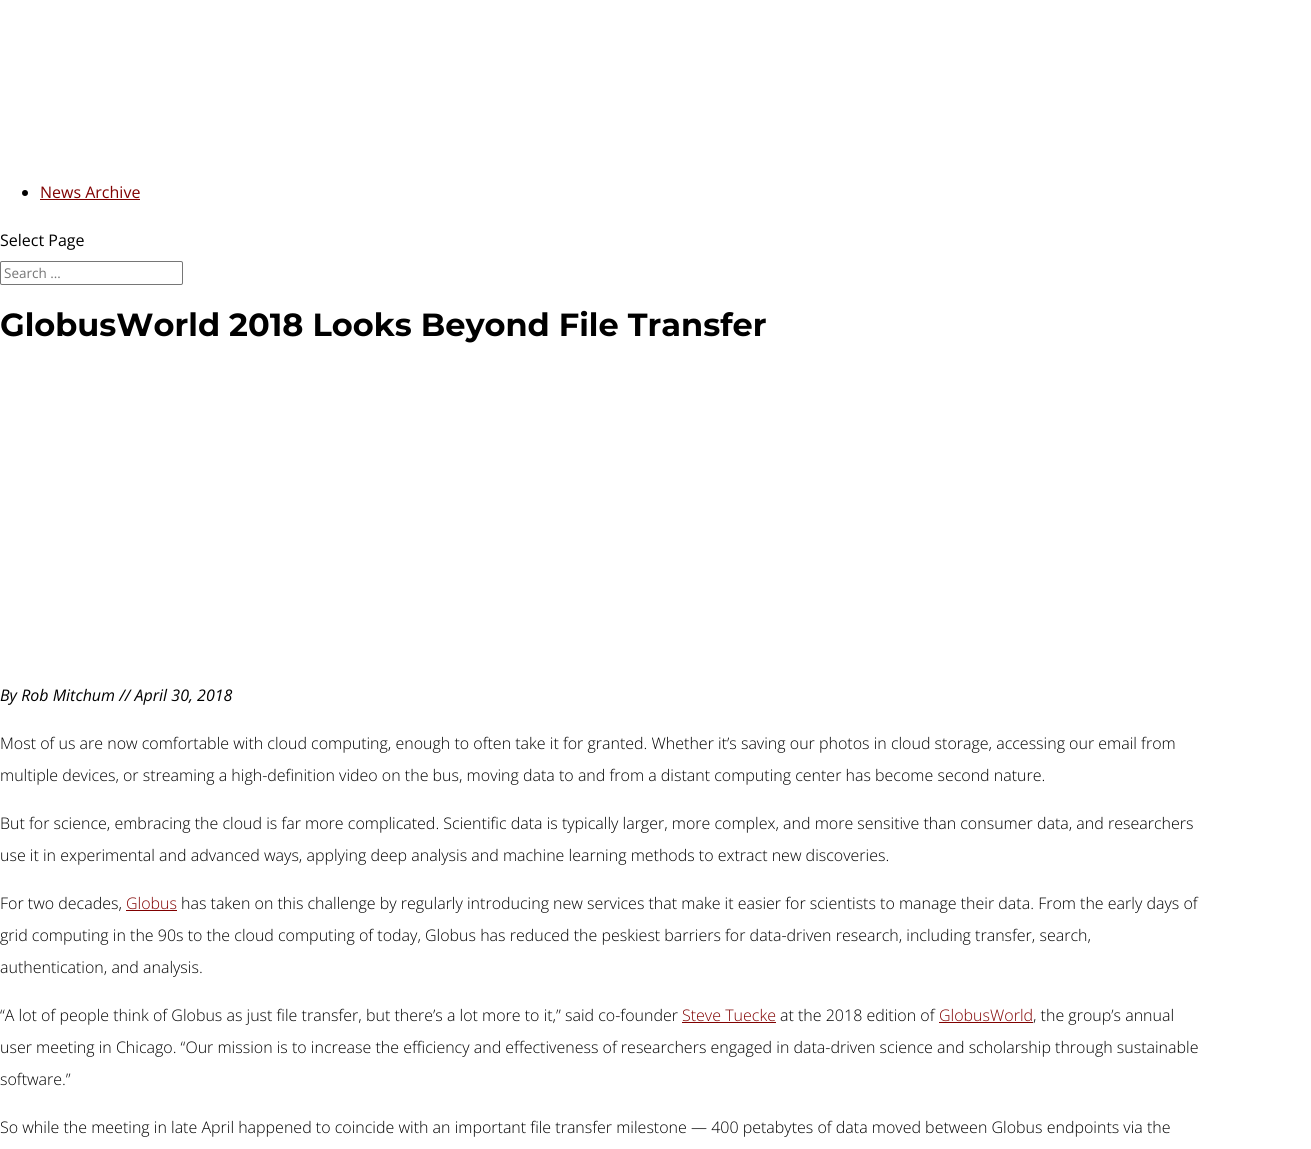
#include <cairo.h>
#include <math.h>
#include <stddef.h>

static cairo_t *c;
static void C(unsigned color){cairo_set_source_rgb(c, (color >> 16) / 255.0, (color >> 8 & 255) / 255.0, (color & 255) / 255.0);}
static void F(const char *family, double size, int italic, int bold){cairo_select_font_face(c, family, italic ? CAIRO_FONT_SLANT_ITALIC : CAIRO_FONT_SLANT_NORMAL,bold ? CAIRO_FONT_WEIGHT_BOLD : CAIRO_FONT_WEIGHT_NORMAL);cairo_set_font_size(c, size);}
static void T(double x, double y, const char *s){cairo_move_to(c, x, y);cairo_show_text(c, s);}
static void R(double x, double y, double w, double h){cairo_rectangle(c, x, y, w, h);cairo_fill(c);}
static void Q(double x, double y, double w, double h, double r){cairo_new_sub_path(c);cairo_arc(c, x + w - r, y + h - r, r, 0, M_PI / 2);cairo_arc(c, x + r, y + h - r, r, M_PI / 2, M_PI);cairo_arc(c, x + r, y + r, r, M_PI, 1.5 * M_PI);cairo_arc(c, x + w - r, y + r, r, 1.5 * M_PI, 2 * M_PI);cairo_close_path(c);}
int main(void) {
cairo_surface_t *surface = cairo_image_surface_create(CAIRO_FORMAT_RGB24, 1311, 1149);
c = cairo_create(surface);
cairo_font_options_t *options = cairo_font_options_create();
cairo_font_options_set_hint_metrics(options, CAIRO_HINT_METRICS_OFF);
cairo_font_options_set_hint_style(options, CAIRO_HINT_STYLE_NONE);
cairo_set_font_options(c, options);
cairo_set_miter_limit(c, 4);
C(0xffffff);
cairo_paint(c);
C(0x000000);
cairo_arc(c,25,193,3,0,2 * M_PI);
cairo_fill(c);
F("Open Sans",16,0,0);
C(0x800000);
T(40,198,"News Archive");
R(40,199,100,1);
C(0x000000);
T(0,246,"Select Page");
Q(.5,261.5,182,23,1.5);
C(0x767676);
cairo_set_line_width(c,1);
cairo_stroke(c);
F("Open Sans",13.5,0,0);
C(0x757575);
T(4,278,"Search …");
F("Montserrat",32,0,1);
C(0x000000);
T(0,336,"GlobusWorld 2018 Looks Beyond File Transfer");
F("Open Sans",16,1,0);
T(0,701,"By Rob Mitchum // April 30, 2018");
F("Open Sans Light",16,0,0);
T(0,749,"Most of us are now comfortable with cloud computing, enough to often take it for granted. Whether it’s saving our photos in cloud storage, accessing our email from");
T(0,781,"multiple devices, or streaming a high-definition video on the bus, moving data to and from a distant computing center has become second nature.");
T(0,829,"But for science, embracing the cloud is far more complicated. Scientific data is typically larger, more complex, and more sensitive than consumer data, and researchers");
T(0,861,"use it in experimental and advanced ways, applying deep analysis and machine learning methods to extract new discoveries.");
T(0,909,"For two decades,");
C(0x800000);
T(126,909,"Globus");
R(126,910,51,1);
C(0x000000);
T(181,909,"has taken on this challenge by regularly introducing new services that make it easier for scientists to manage their data. From the early days of");
T(0,941,"grid computing in the 90s to the cloud computing of today, Globus has reduced the peskiest barriers for data-driven research, including transfer, search,");
T(0,973,"authentication, and analysis.");
T(0,1021,"“A lot of people think of Globus as just file transfer, but there’s a lot more to it,” said co-founder");
C(0x800000);
T(682,1021,"Steve Tuecke");
R(682,1022,94,1);
C(0x000000);
T(780,1021,"at the 2018 edition of");
C(0x800000);
T(939,1021,"GlobusWorld");
R(939,1022,94,1);
C(0x000000);
T(1033,1021,", the group’s annual");
T(0,1053,"user meeting in Chicago. “Our mission is to increase the efficiency and effectiveness of researchers engaged in data-driven science and scholarship through sustainable");
T(0,1085,"software.”");
T(0,1133,"So while the meeting in late April happened to coincide with an important file transfer milestone — 400 petabytes of data moved between Globus endpoints via the");
cairo_surface_write_to_png(surface, "o.png");
cairo_font_options_destroy(options);
cairo_destroy(c);
cairo_surface_destroy(surface);
return 0;
}
